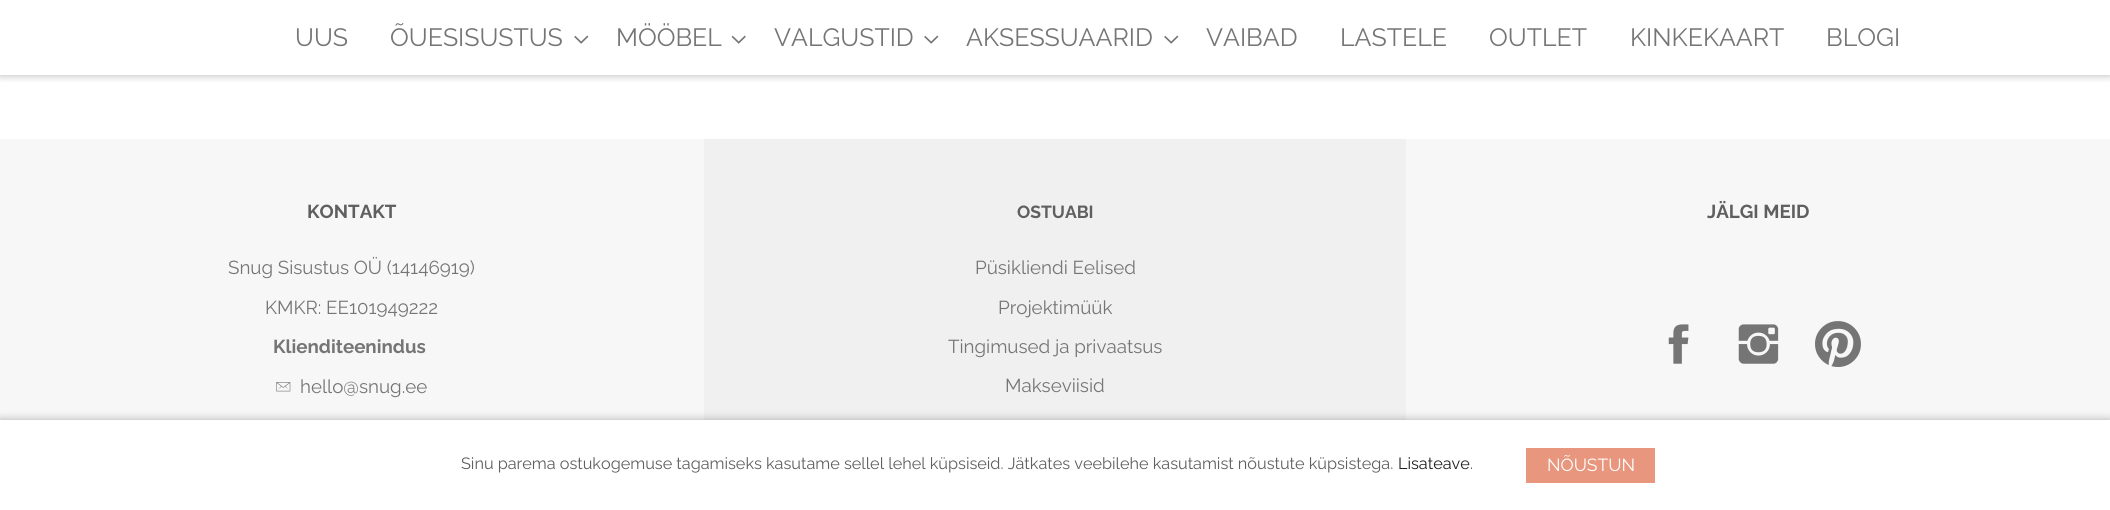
#include <cairo.h>
#include <math.h>
#include <stddef.h>

static cairo_t *c;
static void C(unsigned color){cairo_set_source_rgb(c, (color >> 16) / 255.0, (color >> 8 & 255) / 255.0, (color & 255) / 255.0);}
static void F(const char *family, double size, int italic, int bold){cairo_select_font_face(c, family, italic ? CAIRO_FONT_SLANT_ITALIC : CAIRO_FONT_SLANT_NORMAL,bold ? CAIRO_FONT_WEIGHT_BOLD : CAIRO_FONT_WEIGHT_NORMAL);cairo_set_font_size(c, size);}
static void T(double x, double y, const char *s){cairo_move_to(c, x, y);cairo_show_text(c, s);}
static void R(double x, double y, double w, double h){cairo_rectangle(c, x, y, w, h);cairo_fill(c);}
static void Q(double x, double y, double w, double h, double r){cairo_new_sub_path(c);cairo_arc(c, x + w - r, y + h - r, r, 0, M_PI / 2);cairo_arc(c, x + r, y + h - r, r, M_PI / 2, M_PI);cairo_arc(c, x + r, y + r, r, M_PI, 1.5 * M_PI);cairo_arc(c, x + w - r, y + r, r, 1.5 * M_PI, 2 * M_PI);cairo_close_path(c);}
static void S(double x, double y, double w, double h, double r, double blur, double alpha){cairo_push_group_with_content(c, CAIRO_CONTENT_ALPHA);cairo_set_operator(c, CAIRO_OPERATOR_SOURCE);for (int i = 15; i >= -15 && fmin(w, h) + blur * i / 3 > 0; i -= 2) {double e = blur * i / 6;cairo_set_source_rgba(c, 0, 0, 0, alpha * erfc((i - 1) / 8.5) / 2);Q(x - e, y - e, w + 2 * e, h + 2 * e, fmax(0, fmin(r + e + blur * .6, fmin(w, h) / 2 + e)));cairo_fill(c);}cairo_pattern_t *soft = cairo_pop_group(c);cairo_mask(c, soft);cairo_pattern_destroy(soft);}
static void I(const char *path, double x, double y, double w, double h){cairo_surface_t *image = cairo_image_surface_create_from_png(path);cairo_save(c);cairo_set_source_surface(c, image, x, y);cairo_rectangle(c, x, y, w, h);cairo_fill(c);cairo_restore(c);cairo_surface_destroy(image);}
int main(void) {
cairo_surface_t *surface = cairo_image_surface_create(CAIRO_FORMAT_RGB24, 2110, 510);
c = cairo_create(surface);
cairo_font_options_t *options = cairo_font_options_create();
cairo_font_options_set_hint_metrics(options, CAIRO_HINT_METRICS_OFF);
cairo_font_options_set_hint_style(options, CAIRO_HINT_STYLE_NONE);
cairo_set_font_options(c, options);
cairo_set_miter_limit(c, 4);
C(0xffffff);
cairo_paint(c);
cairo_save(c);
cairo_rectangle(c,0,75,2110,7);
cairo_clip(c);
C(0x000000);
S(0,0,2110,75,0,4.5,.3);
cairo_restore(c);
F("Raleway",25,0,0);
C(0x757575);
T(295,46,"UUS");
T(390,46,"ÕUESISUSTUS");
I("1.png",574,35,15,9);
T(616,46,"MÖÖBEL");
I("2.png",731,35,15,9);
T(774,46,"VALGUSTID");
I("1.png",924,35,15,9);
T(966,46,"AKSESSUAARID");
I("1.png",1164,35,15,9);
T(1206,46,"VAIBAD");
T(1340,46,"LASTELE");
T(1489,46,"OUTLET");
T(1630,46,"KINKEKAART");
T(1826,46,"BLOGI");
C(0xf7f7f7);
R(0,139,704,281);
F("Raleway",18.75,0,1);
C(0x5f5f5f);
T(307,218,"KONTAKT");
F("Raleway",18.75,0,0);
C(0x757575);
T(228,274,"Snug Sisustus OÜ (14146919)");
T(265,314,"KMKR: EE101949222");
F("Raleway",18.75,0,1);
T(273,353,"Klienditeenindus");
I("3.png",276,382,15,10);
F("Raleway",18.75,0,0);
T(300,393,"hello@snug.ee");
C(0xf0f0f0);
R(704,139,702,281);
F("Raleway",17.5,0,1);
C(0x5f5f5f);
T(1017,218,"OSTUABI");
F("Raleway",18.75,0,0);
C(0x757575);
T(975,274,"Püsikliendi Eelised");
T(998,314,"Projektimüük");
T(948,353,"Tingimused ja privaatsus");
T(1005,392,"Makseviisid");
C(0xf7f7f7);
R(1406,139,704,281);
F("Raleway",18.75,0,1);
C(0x5f5f5f);
T(1707,218,"JÄLGI MEID");
I("4.png",1668,324,21,40);
I("5.png",1738,324,41,40);
I("6.png",1815,321,46,46);
C(0x000000);
S(0,420,2110,90,0,4.5,.3);
C(0xffffff);
R(0,420,2110,90);
F("Raleway",16.25,0,0);
C(0x5f5f5f);
T(461,469,"Sinu parema ostukogemuse tagamiseks kasutame sellel lehel küpsiseid. Jätkates veebilehe kasutamist nõustute küpsistega.");
C(0x1f1f1f);
T(1398,469,"Lisateave");
C(0x5f5f5f);
T(1470,469,".");
C(0xe8967d);
R(1526,448,129,35);
F("Raleway",17.5,0,0);
C(0xffffff);
T(1547,471,"NÕUSTUN");
cairo_surface_write_to_png(surface, "o.png");
cairo_font_options_destroy(options);
cairo_destroy(c);
cairo_surface_destroy(surface);
return 0;
}
